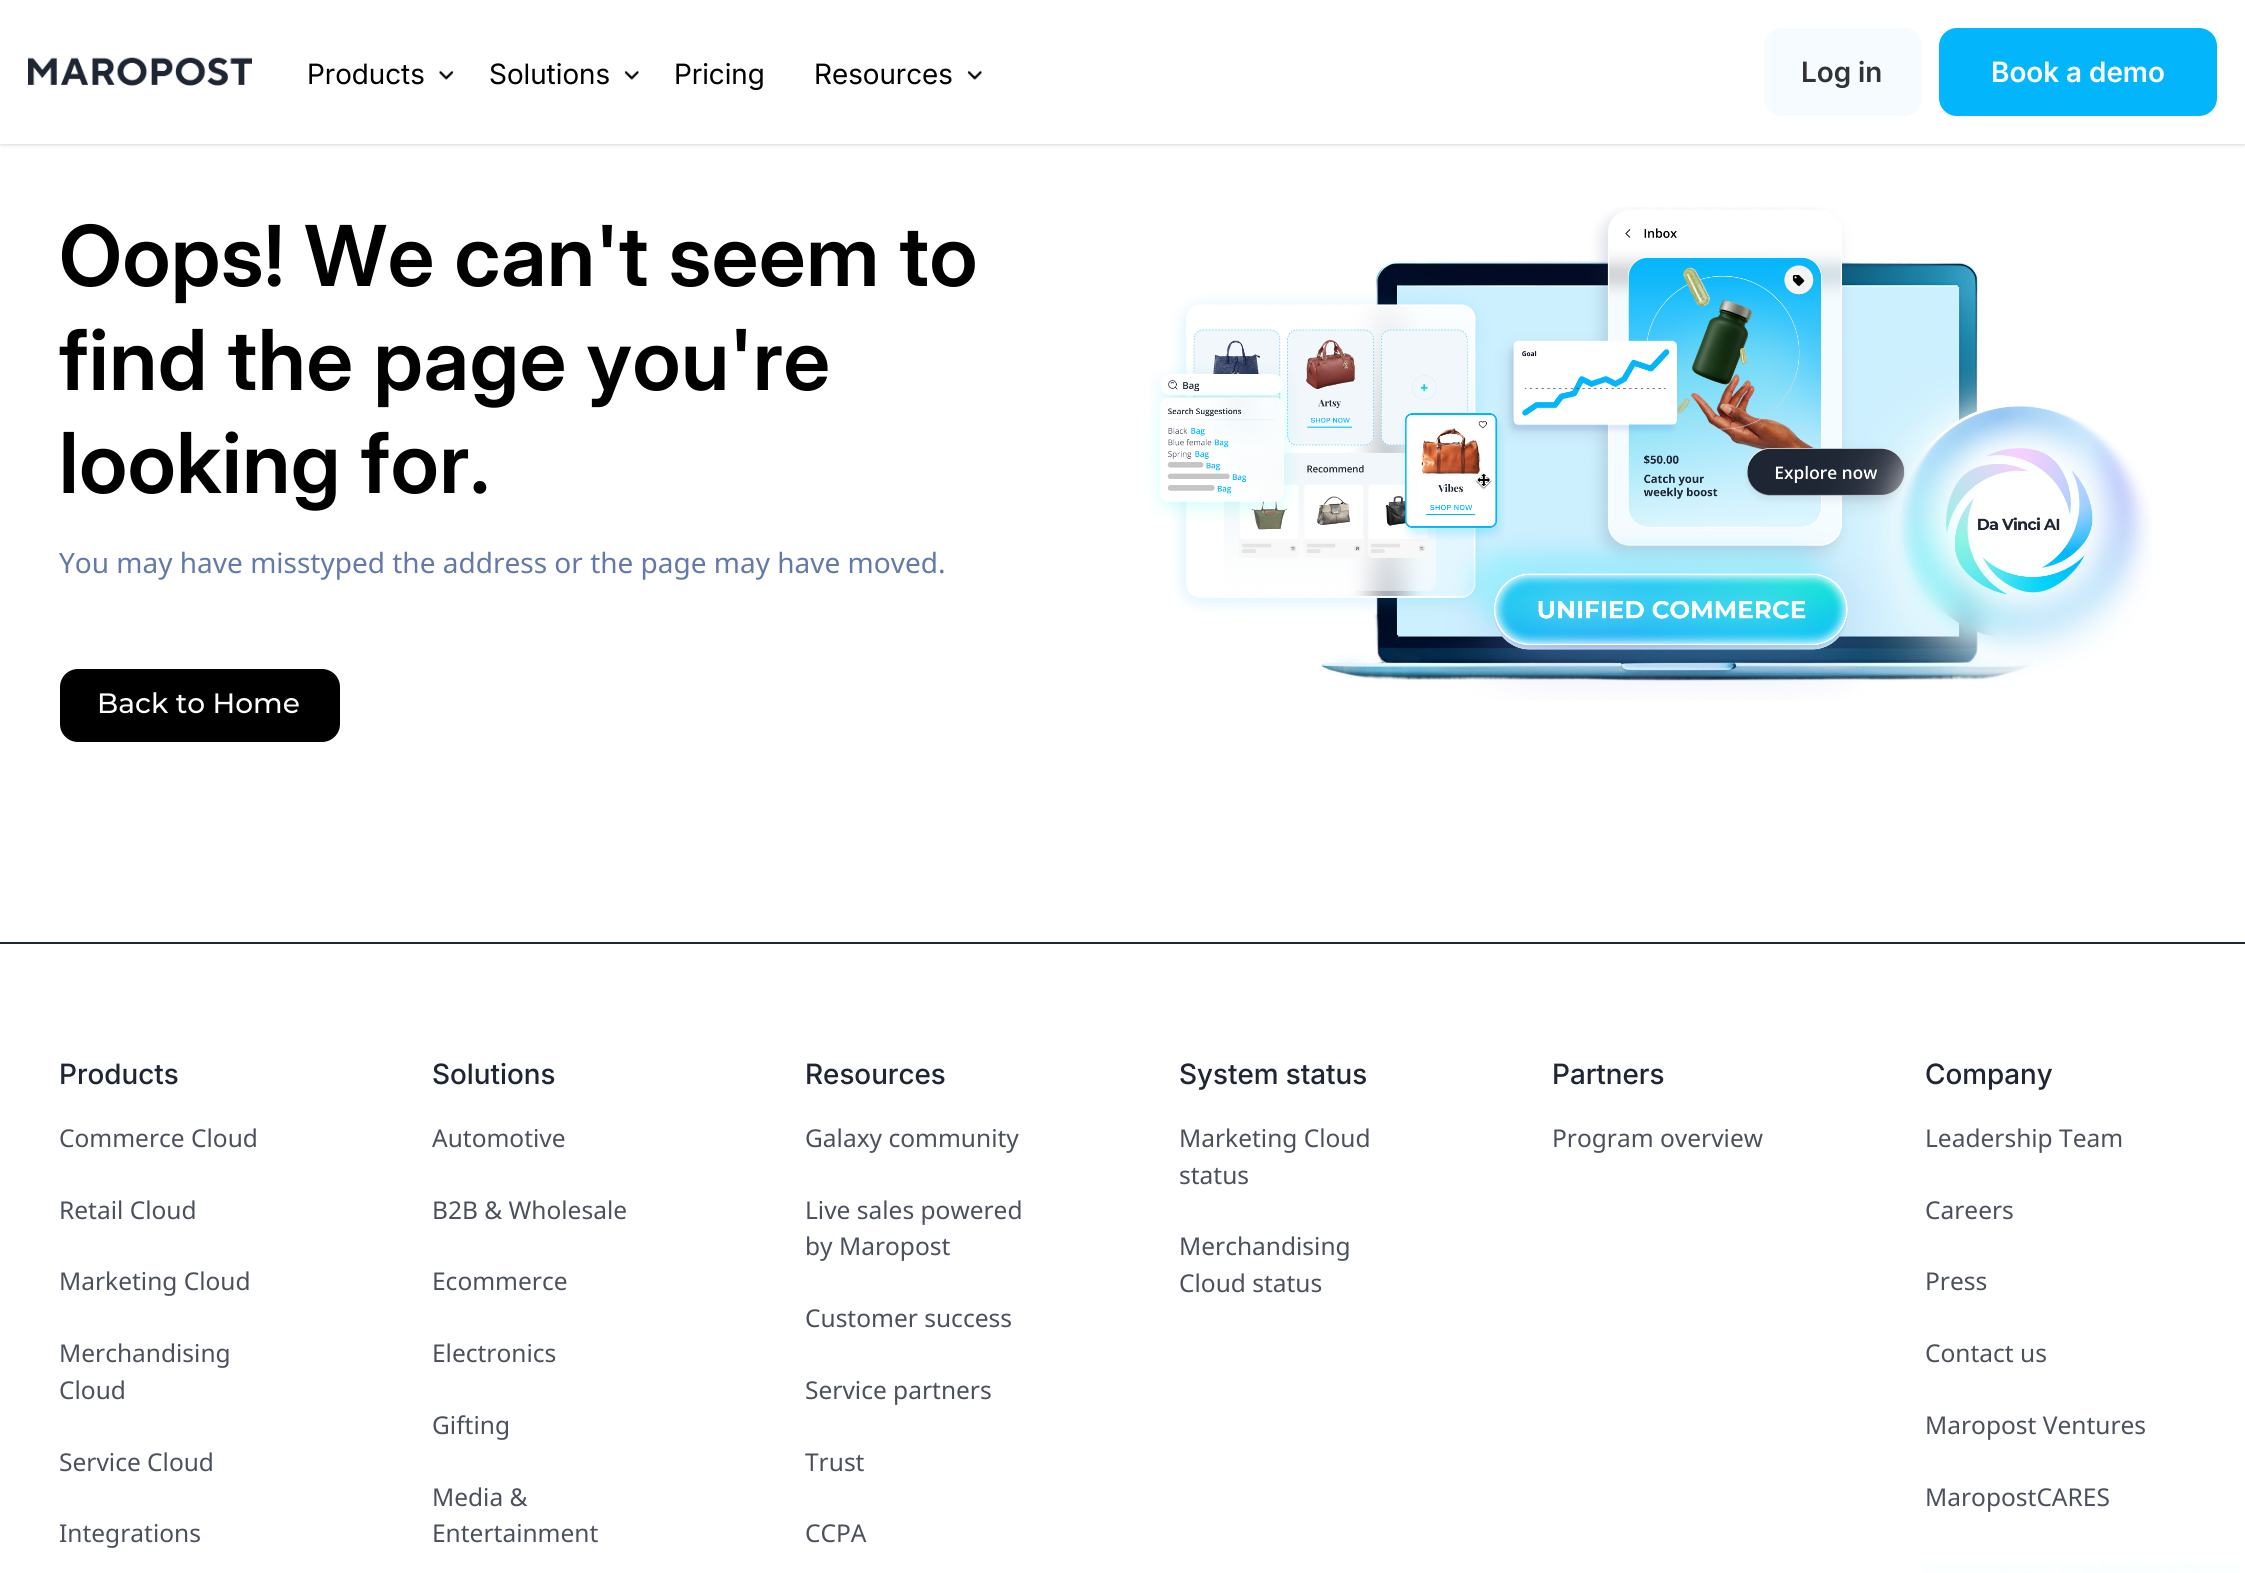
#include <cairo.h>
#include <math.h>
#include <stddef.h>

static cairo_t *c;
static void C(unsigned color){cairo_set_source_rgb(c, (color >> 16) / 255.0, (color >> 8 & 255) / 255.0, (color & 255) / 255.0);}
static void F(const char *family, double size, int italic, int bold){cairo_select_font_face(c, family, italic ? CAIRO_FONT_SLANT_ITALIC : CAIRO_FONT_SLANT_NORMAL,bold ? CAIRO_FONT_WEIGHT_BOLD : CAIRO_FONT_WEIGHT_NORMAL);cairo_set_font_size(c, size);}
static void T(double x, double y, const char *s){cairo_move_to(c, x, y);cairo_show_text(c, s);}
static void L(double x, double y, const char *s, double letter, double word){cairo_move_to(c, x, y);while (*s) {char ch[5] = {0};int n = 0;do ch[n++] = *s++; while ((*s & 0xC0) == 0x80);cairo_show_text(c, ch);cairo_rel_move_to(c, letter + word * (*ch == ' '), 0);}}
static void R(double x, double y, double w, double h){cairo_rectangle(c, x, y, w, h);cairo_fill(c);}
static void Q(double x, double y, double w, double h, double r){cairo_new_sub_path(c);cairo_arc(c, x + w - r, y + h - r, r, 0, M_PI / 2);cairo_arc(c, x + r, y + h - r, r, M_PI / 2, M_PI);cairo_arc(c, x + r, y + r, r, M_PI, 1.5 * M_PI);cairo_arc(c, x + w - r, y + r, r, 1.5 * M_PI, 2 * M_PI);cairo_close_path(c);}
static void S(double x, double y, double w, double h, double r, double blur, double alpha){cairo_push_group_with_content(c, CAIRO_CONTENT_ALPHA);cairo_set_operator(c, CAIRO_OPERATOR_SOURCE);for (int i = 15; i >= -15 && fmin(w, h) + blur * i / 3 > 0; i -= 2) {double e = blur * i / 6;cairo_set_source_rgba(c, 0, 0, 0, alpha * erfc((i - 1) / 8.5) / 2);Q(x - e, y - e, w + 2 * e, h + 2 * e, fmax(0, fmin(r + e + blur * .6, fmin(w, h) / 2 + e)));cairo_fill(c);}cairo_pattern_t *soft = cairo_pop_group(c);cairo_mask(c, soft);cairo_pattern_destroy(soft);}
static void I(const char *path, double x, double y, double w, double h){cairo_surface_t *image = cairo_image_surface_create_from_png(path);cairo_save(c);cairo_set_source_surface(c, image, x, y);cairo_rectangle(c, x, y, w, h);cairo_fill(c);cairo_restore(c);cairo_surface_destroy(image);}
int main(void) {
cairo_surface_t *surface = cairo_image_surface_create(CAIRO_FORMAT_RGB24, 2245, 1573);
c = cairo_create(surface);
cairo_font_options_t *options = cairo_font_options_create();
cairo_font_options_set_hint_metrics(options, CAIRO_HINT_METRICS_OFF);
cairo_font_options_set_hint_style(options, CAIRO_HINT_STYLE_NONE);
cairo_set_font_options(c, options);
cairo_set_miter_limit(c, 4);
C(0xffffff);
cairo_paint(c);
C(0x000000);
S(2,4,2242,140,0,2,.1);
S(0,2,2245,143,0,2.5,.1);
C(0xffffff);
R(0,0,2245,144);
I("1.png",28,57,224,29);
F("Inter",28,0,0);
C(0x000000);
T(307,84,"Products");
I("2.png",439,70,15,10);
T(489,84,"Solutions");
I("3.png",624,70,15,10);
T(674,84,"Pricing");
T(814,84,"Resources");
I("3.png",967,70,15,10);
C(0xf5fbff);
Q(1764,28,158,88,18);
cairo_fill(c);
F("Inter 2 SemiBold",28,0,0);
C(0x333333);
T(1801,82,"Log in");
C(0x03b6fc);
Q(1939,28,278,88,18);
cairo_fill(c);
C(0xffffff);
T(1991,82,"Book a demo");
F("Inter SemiBold",84,0,0);
C(0x000000);
L(59,286,"Oops! We can't seem to",.7,0);
L(59,390,"find the page you're",.7,0);
L(59,493,"looking for.",.7,0);
F("Noto Sans",28,0,0);
C(0x6279a9);
T(59,573,"You may have misstyped the address or the page may have moved.");
C(0x000000);
Q(61,670,278,71,17);
cairo_fill_preserve(c);
cairo_stroke(c);
F("Montserrat Medium",28,0,0);
C(0xffffff);
T(97,713,"Back to Home");
I("4.png",1149,207,1004,493);
I("5.png",1922,1561,319,12);
C(0x1e2533);
R(0,942,2245,2);
F("Inter Medium",28,0,0);
T(59,1084,"Products");
F("Noto Sans",24.5,0,0);
C(0x4b515c);
T(59,1147,"Commerce Cloud");
T(59,1219,"Retail Cloud");
T(59,1290,"Marketing Cloud");
T(59,1362,"Merchandising");
T(59,1399,"Cloud");
T(59,1471,"Service Cloud");
T(59,1542,"Integrations");
F("Inter Medium",28,0,0);
C(0x1e2533);
T(432,1084,"Solutions");
F("Noto Sans",24.5,0,0);
C(0x4b515c);
T(432,1147,"Automotive");
T(432,1219,"B2B & Wholesale");
T(432,1290,"Ecommerce");
T(432,1362,"Electronics");
T(432,1434,"Gifting");
T(432,1506,"Media &");
T(432,1542,"Entertainment");
F("Inter Medium",28,0,0);
C(0x1e2533);
T(805,1084,"Resources");
F("Noto Sans",24.5,0,0);
C(0x4b515c);
T(805,1147,"Galaxy community");
T(805,1219,"Live sales powered");
T(805,1255,"by Maropost");
T(805,1327,"Customer success");
T(805,1399,"Service partners");
T(805,1471,"Trust");
T(805,1542,"CCPA");
F("Inter Medium",28,0,0);
C(0x1e2533);
T(1179,1084,"System status");
F("Noto Sans",24.5,0,0);
C(0x4b515c);
T(1179,1147,"Marketing Cloud");
T(1179,1184,"status");
T(1179,1255,"Merchandising");
T(1179,1292,"Cloud status");
F("Inter Medium",28,0,0);
C(0x1e2533);
T(1552,1084,"Partners");
F("Noto Sans",24.5,0,0);
C(0x4b515c);
T(1552,1147,"Program overview");
F("Inter Medium",28,0,0);
C(0x1e2533);
T(1925,1084,"Company");
F("Noto Sans",24.5,0,0);
C(0x4b515c);
T(1925,1147,"Leadership Team");
T(1925,1219,"Careers");
T(1925,1290,"Press");
T(1925,1362,"Contact us");
T(1925,1434,"Maropost Ventures");
T(1925,1506,"MaropostCARES");
cairo_surface_write_to_png(surface, "o.png");
cairo_font_options_destroy(options);
cairo_destroy(c);
cairo_surface_destroy(surface);
return 0;
}
